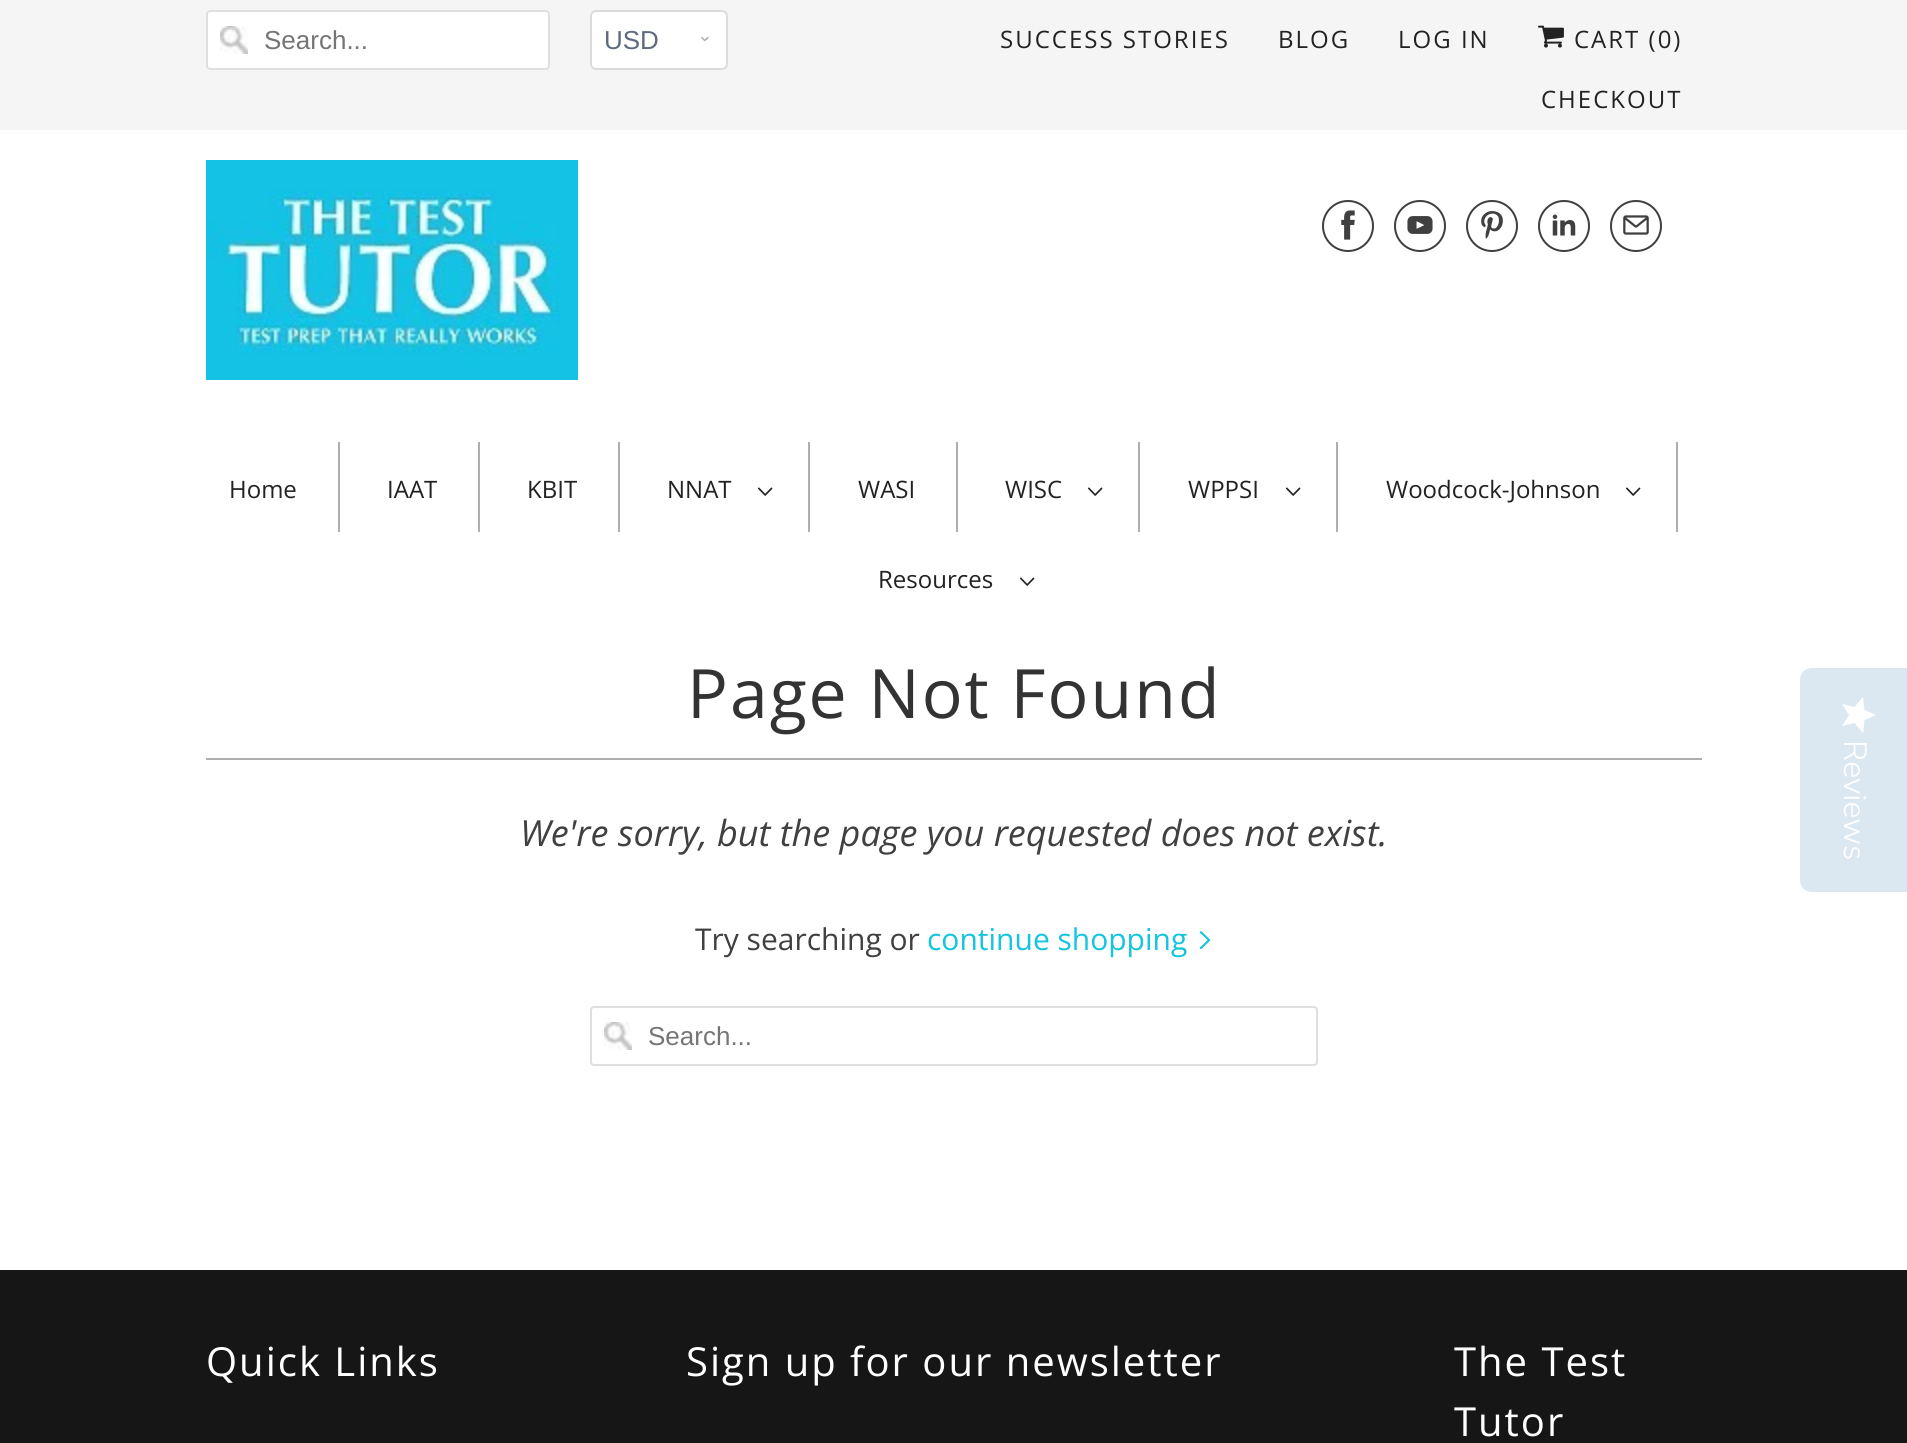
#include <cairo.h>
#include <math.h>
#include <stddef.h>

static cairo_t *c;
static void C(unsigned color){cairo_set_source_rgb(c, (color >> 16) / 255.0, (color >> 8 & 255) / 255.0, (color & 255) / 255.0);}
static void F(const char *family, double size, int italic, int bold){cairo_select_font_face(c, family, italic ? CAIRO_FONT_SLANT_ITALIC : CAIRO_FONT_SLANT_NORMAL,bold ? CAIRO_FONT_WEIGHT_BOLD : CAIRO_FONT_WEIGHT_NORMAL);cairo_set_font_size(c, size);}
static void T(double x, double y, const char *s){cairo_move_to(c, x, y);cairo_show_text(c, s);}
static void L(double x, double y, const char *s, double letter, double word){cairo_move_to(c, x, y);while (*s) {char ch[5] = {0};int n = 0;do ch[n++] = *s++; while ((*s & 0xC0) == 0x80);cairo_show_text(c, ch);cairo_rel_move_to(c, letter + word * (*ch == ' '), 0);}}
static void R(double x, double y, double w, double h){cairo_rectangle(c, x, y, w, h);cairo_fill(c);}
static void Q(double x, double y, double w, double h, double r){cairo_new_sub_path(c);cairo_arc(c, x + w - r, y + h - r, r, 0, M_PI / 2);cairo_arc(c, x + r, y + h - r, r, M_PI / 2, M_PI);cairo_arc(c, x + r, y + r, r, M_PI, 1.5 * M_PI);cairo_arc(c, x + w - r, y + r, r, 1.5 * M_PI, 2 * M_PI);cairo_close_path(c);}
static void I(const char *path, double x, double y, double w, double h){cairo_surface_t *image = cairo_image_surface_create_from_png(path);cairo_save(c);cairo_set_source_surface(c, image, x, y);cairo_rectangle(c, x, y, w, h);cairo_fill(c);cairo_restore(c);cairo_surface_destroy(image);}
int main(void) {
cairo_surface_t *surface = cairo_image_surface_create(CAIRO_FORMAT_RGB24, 1907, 1443);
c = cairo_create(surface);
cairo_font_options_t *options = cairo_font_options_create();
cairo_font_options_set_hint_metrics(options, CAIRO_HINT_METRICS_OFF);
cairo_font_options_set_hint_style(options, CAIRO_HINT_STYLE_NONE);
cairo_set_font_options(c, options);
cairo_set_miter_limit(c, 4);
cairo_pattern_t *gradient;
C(0xffffff);
cairo_paint(c);
C(0xf5f5f5);
R(0,0,1907,130);
C(0xffffff);
Q(206,10,344,60,4);
cairo_fill(c);
I("1.png",220,26,28,28);
Q(207,11,342,58,3);
C(0xdfdfdf);
cairo_stroke(c);
F("Liberation Sans",26,0,0);
C(0x757575);
T(264,49,"Search...");
C(0xffffff);
Q(590,10,138,60,6);
cairo_fill(c);
I("2.png",700,36,9,6);
Q(591,11,136,58,5);
C(0xd9dbdc);
cairo_stroke(c);
C(0x5f6a7d);
T(604,49,"USD");
F("Open Sans",24,0,0);
C(0x222222);
L(1000,48,"SUCCESS STORIES",2,0);
L(1278,48,"BLOG",2,0);
L(1398,48,"LOG IN",2,0);
I("3.png",1538,25,26,23);
L(1574,48,"CART (0)",2,0);
L(1541,108,"CHECKOUT",2,0);
I("4.png",206,160,372,220);
cairo_arc(c,1348,226,25,0,2 * M_PI);
C(0x404040);
cairo_stroke(c);
I("5.png",1341,210,14,30);
cairo_arc(c,1420,226,25,0,2 * M_PI);
cairo_stroke(c);
I("6.png",1407,216,26,18);
cairo_arc(c,1492,226,25,0,2 * M_PI);
cairo_stroke(c);
I("7.png",1481,211,22,28);
cairo_arc(c,1564,226,25,0,2 * M_PI);
cairo_stroke(c);
I("8.png",1552,214,24,22);
cairo_arc(c,1636,226,25,0,2 * M_PI);
cairo_stroke(c);
I("9.png",1623,215,26,20);
C(0xaeaeb0);
R(338,442,2,90);
C(0x222222);
T(229,498,"Home");
C(0xaeaeb0);
R(478,442,2,90);
C(0x222222);
T(387,498,"IAAT");
C(0xaeaeb0);
R(618,442,2,90);
C(0x222222);
T(527,498,"KBIT");
C(0xaeaeb0);
R(808,442,2,90);
C(0x222222);
T(667,498,"NNAT");
I("10.png",758,487,15,9);
C(0xaeaeb0);
R(956,442,2,90);
C(0x222222);
T(858,498,"WASI");
C(0xaeaeb0);
R(1138,442,2,90);
C(0x222222);
T(1005,498,"WISC");
I("10.png",1088,487,15,9);
C(0xaeaeb0);
R(1336,442,2,90);
C(0x222222);
T(1188,498,"WPPSI");
I("10.png",1286,487,15,9);
C(0xaeaeb0);
R(1676,442,2,90);
C(0x222222);
T(1386,498,"Woodcock-Johnson");
I("10.png",1626,487,15,9);
T(878,588,"Resources");
I("10.png",1020,577,15,9);
C(0xaeaeb0);
R(206,758,1496,2);
F("Open Sans",68,0,0);
C(0x333333);
L(687,718,"Page Not Found",2,0);
F("Open Sans",36,1,0);
C(0x404040);
T(520,846,"We're sorry, but the page you requested does not exist.");
F("Open Sans",30,0,0);
T(695,950,"Try searching or");
C(0x13c5de);
T(927,950,"continue shopping");
I("11.png",1199,931,12,19);
I("1.png",604,1022,28,28);
Q(591,1007,726,58,3);
C(0xdfdfdf);
cairo_stroke(c);
F("Liberation Sans",26,0,0);
C(0x757575);
T(648,1045,"Search...");
C(0xdbe8f2);
cairo_new_path(c);
cairo_move_to(c,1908,668);
cairo_line_to(c,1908,892);
cairo_line_to(c,1812,892);
cairo_curve_to(c,1805,892,1800,887,1800,880);
cairo_line_to(c,1800,680);
cairo_curve_to(c,1800,673,1805,668,1812,668);
cairo_close_path(c);
cairo_fill(c);
gradient = cairo_pattern_create_linear(1876,697,1876,733);
cairo_pattern_add_color_stop_rgba(gradient,1,1,1,1,1);
cairo_pattern_add_color_stop_rgba(gradient,1,0.984,0.984,0.984,1);
cairo_set_source(c,gradient);
cairo_pattern_destroy(gradient);
cairo_new_path(c);
cairo_move_to(c,1849,715);
cairo_line_to(c,1842,726);
cairo_line_to(c,1854.5,723);
cairo_line_to(c,1863,733);
cairo_line_to(c,1864.5,720);
cairo_line_to(c,1876,715);
cairo_line_to(c,1864.5,710);
cairo_line_to(c,1863,697);
cairo_line_to(c,1854.5,707);
cairo_line_to(c,1842,704);
cairo_close_path(c);
cairo_fill(c);
F("Nunito Sans Light",32,0,0);
C(0xffffff);
cairo_save(c);
cairo_translate(c,1844,740);
cairo_rotate(c,90 * M_PI / 180);
T(0,0,"Reviews");
cairo_restore(c);
C(0x161616);
R(0,1270,1907,173);
F("Open Sans",40,0,0);
C(0xffffff);
L(206,1376,"Quick Links",2,0);
L(686,1376,"Sign up for our newsletter",2,0);
L(1454,1376,"The Test",2,0);
L(1454,1436,"Tutor",2,0);
cairo_surface_write_to_png(surface, "o.png");
cairo_font_options_destroy(options);
cairo_destroy(c);
cairo_surface_destroy(surface);
return 0;
}
